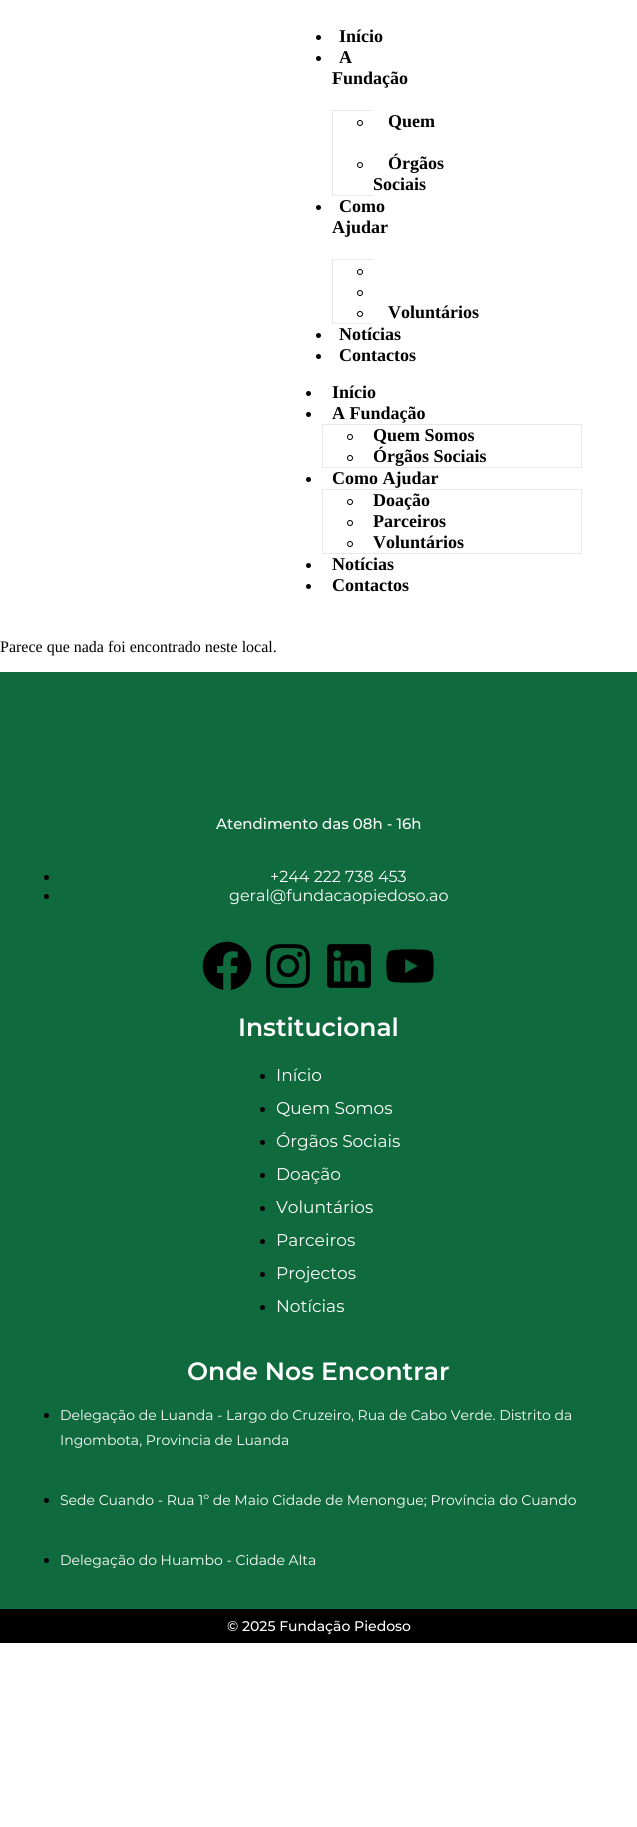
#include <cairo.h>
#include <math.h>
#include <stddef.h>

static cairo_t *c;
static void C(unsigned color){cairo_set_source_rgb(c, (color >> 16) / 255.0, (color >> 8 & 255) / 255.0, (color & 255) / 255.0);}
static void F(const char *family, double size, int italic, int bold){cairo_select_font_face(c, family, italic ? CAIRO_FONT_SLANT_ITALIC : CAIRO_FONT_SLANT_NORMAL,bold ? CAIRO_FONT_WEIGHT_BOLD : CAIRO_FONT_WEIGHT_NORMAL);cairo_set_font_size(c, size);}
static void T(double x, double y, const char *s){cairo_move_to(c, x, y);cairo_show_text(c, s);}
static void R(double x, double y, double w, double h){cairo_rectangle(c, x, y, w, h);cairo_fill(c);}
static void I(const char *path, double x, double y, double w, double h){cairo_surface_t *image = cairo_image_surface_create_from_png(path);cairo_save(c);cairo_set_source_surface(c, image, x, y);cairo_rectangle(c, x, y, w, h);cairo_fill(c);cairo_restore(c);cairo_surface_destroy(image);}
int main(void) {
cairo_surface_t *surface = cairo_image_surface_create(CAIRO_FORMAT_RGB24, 637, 1827);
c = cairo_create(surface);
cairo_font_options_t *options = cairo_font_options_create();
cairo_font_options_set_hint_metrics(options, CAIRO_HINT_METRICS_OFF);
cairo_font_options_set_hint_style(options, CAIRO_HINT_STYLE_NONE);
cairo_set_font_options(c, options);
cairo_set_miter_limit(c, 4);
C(0xffffff);
cairo_paint(c);
C(0x000000);
cairo_arc(c,318.5,37.5,2.5,0,2 * M_PI);
cairo_fill(c);
F("Liberation Serif",18,0,1);
T(339,42,"Início");
cairo_new_path(c);
cairo_arc(c,318.5,58.5,2.5,0,2 * M_PI);
cairo_fill(c);
T(339,63,"A");
T(332,84,"Fundação");
cairo_rectangle(c,332.5,110.5,41,85);
C(0xe8e8e8);
cairo_set_line_width(c,1);
cairo_stroke(c);
cairo_arc(c,360,123,2.5,0,2 * M_PI);
C(0x000000);
cairo_stroke(c);
T(388,127,"Quem");
C(0xffffff);
R(373,110,1,86);
cairo_new_path(c);
cairo_arc(c,360,165,2.5,0,2 * M_PI);
C(0x000000);
cairo_stroke(c);
T(388,169,"Órgãos");
T(373,190,"Sociais");
cairo_new_path(c);
cairo_arc(c,318.5,207.5,2.5,0,2 * M_PI);
cairo_fill(c);
T(339,212,"Como");
T(332,233,"Ajudar");
cairo_rectangle(c,332.5,259.5,41,64);
C(0xe8e8e8);
cairo_stroke(c);
cairo_arc(c,360,272,2.5,0,2 * M_PI);
C(0x000000);
cairo_stroke(c);
C(0xffffff);
R(373,259,1,65);
cairo_arc(c,360,293,2.5,0,2 * M_PI);
C(0x000000);
cairo_stroke(c);
cairo_arc(c,360,314,2.5,0,2 * M_PI);
cairo_stroke(c);
T(388,318,"Voluntários");
cairo_new_path(c);
cairo_arc(c,318.5,335.5,2.5,0,2 * M_PI);
cairo_fill(c);
T(339,340,"Notícias");
cairo_new_path(c);
cairo_arc(c,318.5,356.5,2.5,0,2 * M_PI);
cairo_fill(c);
T(339,361,"Contactos");
cairo_new_path(c);
cairo_arc(c,308.5,393.5,2.5,0,2 * M_PI);
cairo_fill(c);
T(332,398,"Início");
cairo_new_path(c);
cairo_arc(c,308.5,414.5,2.5,0,2 * M_PI);
cairo_fill(c);
T(332,419,"A Fundação");
cairo_rectangle(c,322.5,424.5,259,43);
C(0xe8e8e8);
cairo_stroke(c);
cairo_arc(c,350,437,2.5,0,2 * M_PI);
C(0x000000);
cairo_stroke(c);
T(373,441,"Quem Somos");
cairo_new_path(c);
cairo_arc(c,350,458,2.5,0,2 * M_PI);
cairo_stroke(c);
T(373,462,"Órgãos Sociais");
cairo_new_path(c);
cairo_arc(c,308.5,479.5,2.5,0,2 * M_PI);
cairo_fill(c);
T(332,484,"Como Ajudar");
cairo_rectangle(c,322.5,489.5,259,64);
C(0xe8e8e8);
cairo_stroke(c);
cairo_arc(c,350,502,2.5,0,2 * M_PI);
C(0x000000);
cairo_stroke(c);
T(373,506,"Doação");
cairo_new_path(c);
cairo_arc(c,350,523,2.5,0,2 * M_PI);
cairo_stroke(c);
T(373,527,"Parceiros");
cairo_new_path(c);
cairo_arc(c,350,544,2.5,0,2 * M_PI);
cairo_stroke(c);
T(373,548,"Voluntários");
cairo_new_path(c);
cairo_arc(c,308.5,565.5,2.5,0,2 * M_PI);
cairo_fill(c);
T(332,570,"Notícias");
cairo_new_path(c);
cairo_arc(c,308.5,586.5,2.5,0,2 * M_PI);
cairo_fill(c);
T(332,591,"Contactos");
F("Liberation Serif",16,0,0);
T(0,652,"Parece que nada foi encontrado neste local.");
C(0x0f6a3e);
R(0,672,637,937);
F("Montserrat Medium",15,0,0);
C(0xffffff);
T(216,829,"Atendimento das 08h - 16h");
C(0x000000);
cairo_new_path(c);
cairo_arc(c,46.5,877.5,2.5,0,2 * M_PI);
cairo_fill(c);
F("Montserrat",16,0,0);
C(0xffffff);
T(270,882,"+244 222 738 453");
C(0x000000);
cairo_new_path(c);
cairo_arc(c,46.5,896.5,2.5,0,2 * M_PI);
cairo_fill(c);
C(0xffffff);
T(229,901,"geral@fundacaopiedoso.ao");
I("1.png",202,941,50,49);
I("2.png",266,944,44,44);
I("3.png",327,944,44,44);
I("4.png",386,949,48,34);
F("Montserrat SemiBold",25,0,0);
T(238,1036,"Institucional");
C(0x000000);
cairo_new_path(c);
cairo_arc(c,262.5,1076.5,2.5,0,2 * M_PI);
cairo_fill(c);
F("Montserrat",17,0,0);
C(0xffffff);
T(276,1081,"Início");
C(0x000000);
cairo_new_path(c);
cairo_arc(c,262.5,1109.5,2.5,0,2 * M_PI);
cairo_fill(c);
C(0xffffff);
T(276,1114,"Quem Somos");
C(0x000000);
cairo_new_path(c);
cairo_arc(c,262.5,1142.5,2.5,0,2 * M_PI);
cairo_fill(c);
C(0xffffff);
T(276,1147,"Órgãos Sociais");
C(0x000000);
cairo_new_path(c);
cairo_arc(c,262.5,1175.5,2.5,0,2 * M_PI);
cairo_fill(c);
C(0xffffff);
T(276,1180,"Doação");
C(0x000000);
cairo_new_path(c);
cairo_arc(c,262.5,1208.5,2.5,0,2 * M_PI);
cairo_fill(c);
C(0xffffff);
T(276,1213,"Voluntários");
C(0x000000);
cairo_new_path(c);
cairo_arc(c,262.5,1241.5,2.5,0,2 * M_PI);
cairo_fill(c);
C(0xffffff);
T(276,1246,"Parceiros");
C(0x000000);
cairo_new_path(c);
cairo_arc(c,262.5,1274.5,2.5,0,2 * M_PI);
cairo_fill(c);
C(0xffffff);
T(276,1279,"Projectos");
C(0x000000);
cairo_new_path(c);
cairo_arc(c,262.5,1307.5,2.5,0,2 * M_PI);
cairo_fill(c);
C(0xffffff);
T(276,1312,"Notícias");
F("Montserrat SemiBold",25,0,0);
T(187,1380,"Onde Nos Encontrar");
C(0x000000);
cairo_new_path(c);
cairo_arc(c,46.5,1415.5,2.5,0,2 * M_PI);
cairo_fill(c);
F("Montserrat",14,0,0);
C(0xffffff);
T(60,1420,"Delegação de Luanda - Largo do Cruzeiro, Rua de Cabo Verde. Distrito da");
T(60,1445,"Ingombota, Provincia de Luanda");
C(0x000000);
cairo_new_path(c);
cairo_arc(c,46.5,1500.5,2.5,0,2 * M_PI);
cairo_fill(c);
C(0xffffff);
T(60,1505,"Sede Cuando - Rua 1º de Maio Cidade de Menongue; Província do Cuando");
C(0x000000);
cairo_new_path(c);
cairo_arc(c,46.5,1560.5,2.5,0,2 * M_PI);
cairo_fill(c);
C(0xffffff);
T(60,1565,"Delegação do Huambo - Cidade Alta");
C(0x000000);
R(0,1609,637,34);
F("Montserrat Medium",14,0,0);
C(0xffffff);
T(227,1631,"© 2025 Fundação Piedoso");
cairo_surface_write_to_png(surface, "o.png");
cairo_font_options_destroy(options);
cairo_destroy(c);
cairo_surface_destroy(surface);
return 0;
}
